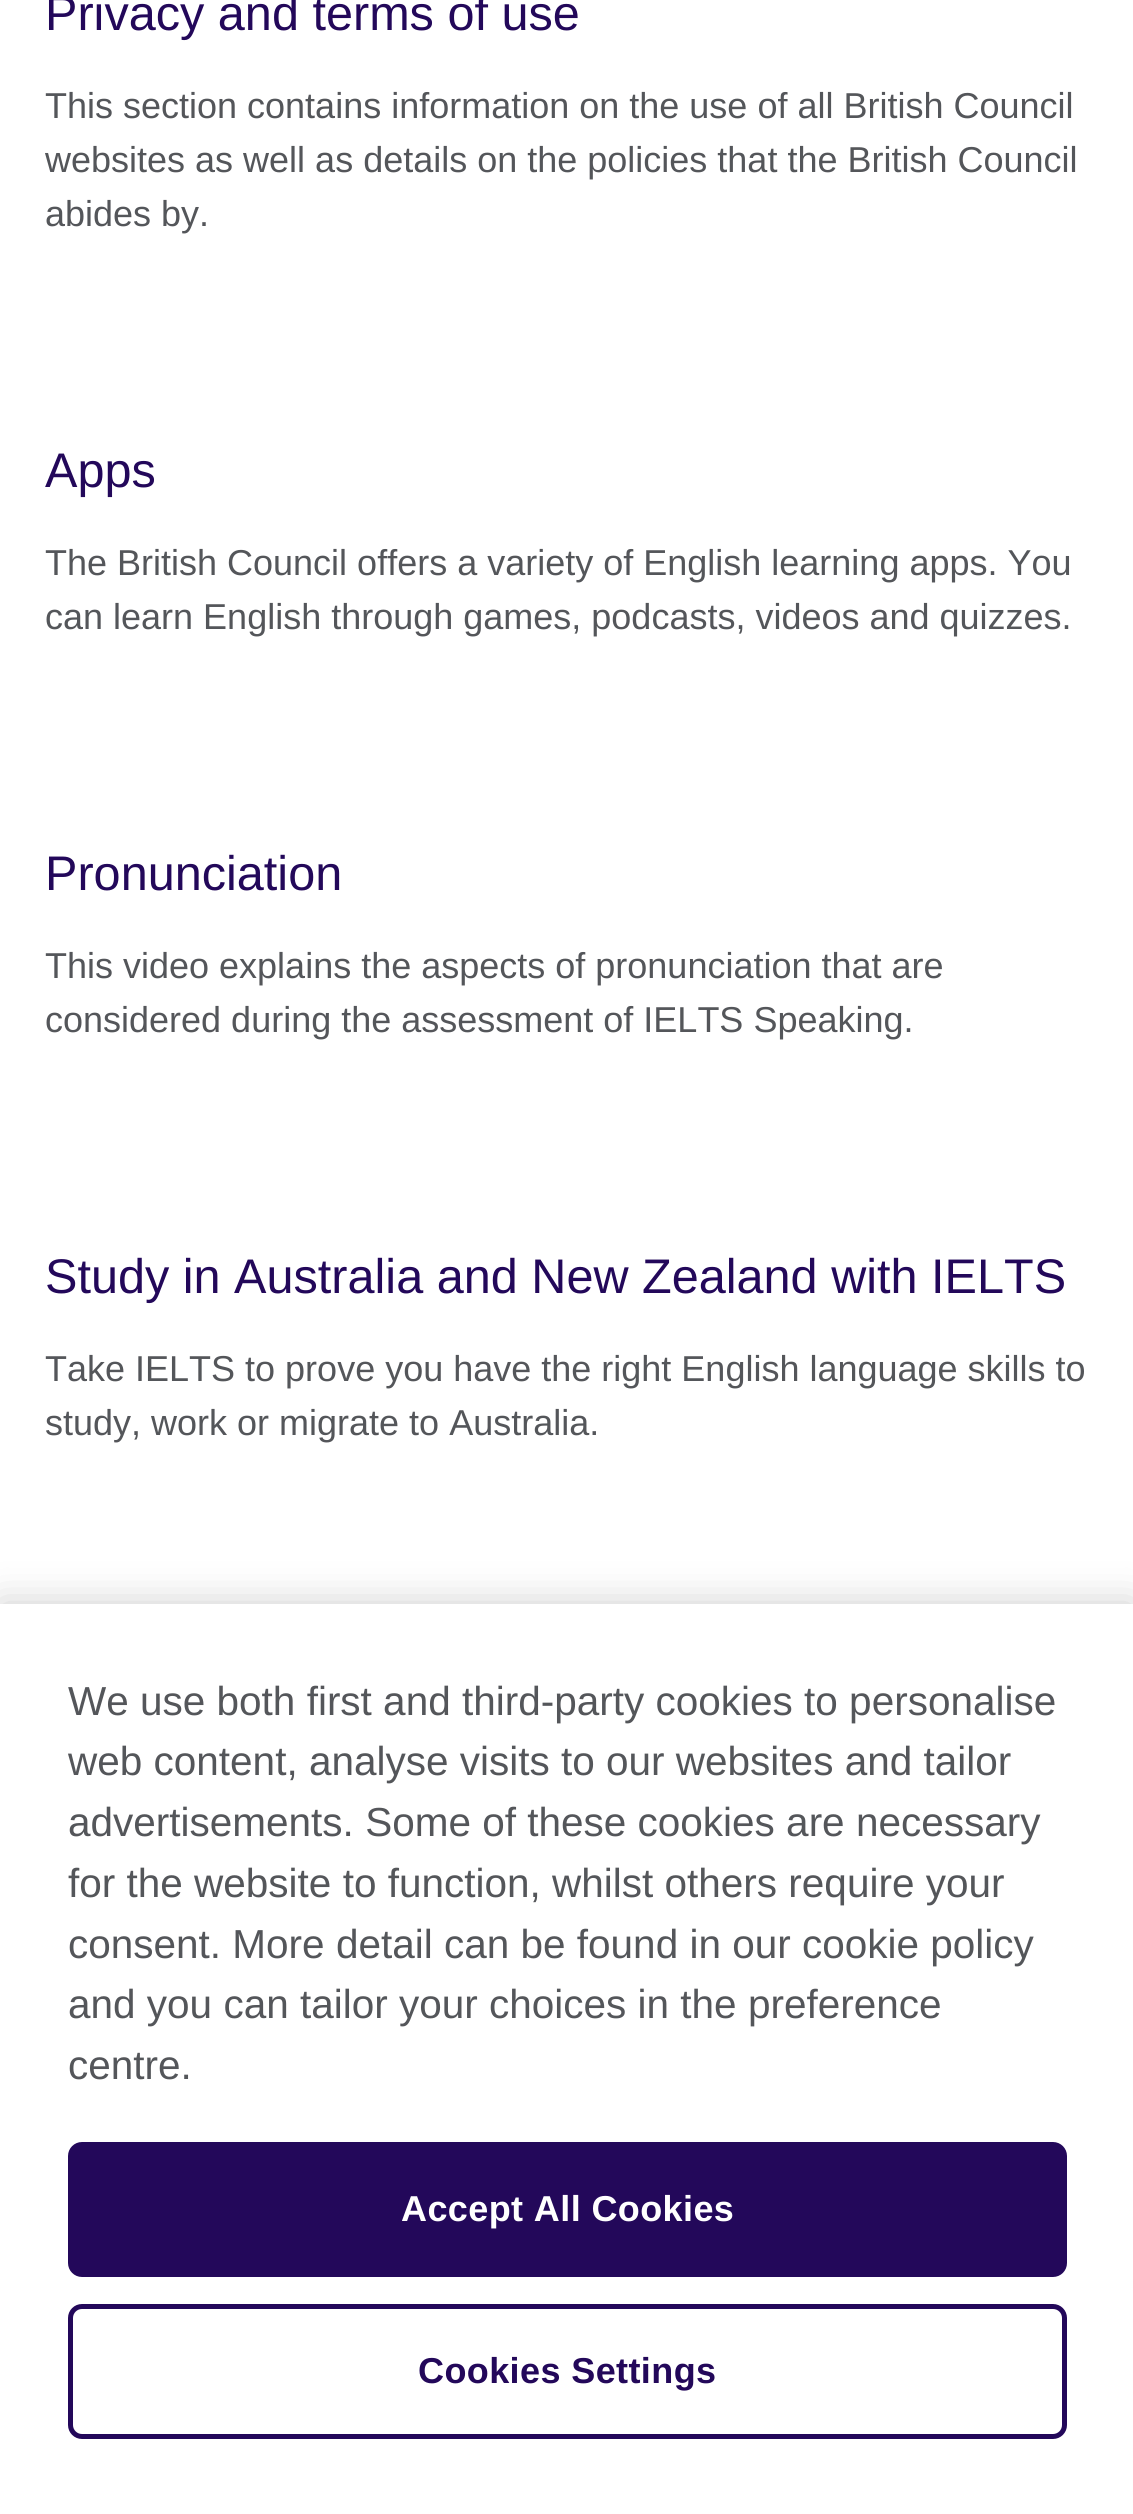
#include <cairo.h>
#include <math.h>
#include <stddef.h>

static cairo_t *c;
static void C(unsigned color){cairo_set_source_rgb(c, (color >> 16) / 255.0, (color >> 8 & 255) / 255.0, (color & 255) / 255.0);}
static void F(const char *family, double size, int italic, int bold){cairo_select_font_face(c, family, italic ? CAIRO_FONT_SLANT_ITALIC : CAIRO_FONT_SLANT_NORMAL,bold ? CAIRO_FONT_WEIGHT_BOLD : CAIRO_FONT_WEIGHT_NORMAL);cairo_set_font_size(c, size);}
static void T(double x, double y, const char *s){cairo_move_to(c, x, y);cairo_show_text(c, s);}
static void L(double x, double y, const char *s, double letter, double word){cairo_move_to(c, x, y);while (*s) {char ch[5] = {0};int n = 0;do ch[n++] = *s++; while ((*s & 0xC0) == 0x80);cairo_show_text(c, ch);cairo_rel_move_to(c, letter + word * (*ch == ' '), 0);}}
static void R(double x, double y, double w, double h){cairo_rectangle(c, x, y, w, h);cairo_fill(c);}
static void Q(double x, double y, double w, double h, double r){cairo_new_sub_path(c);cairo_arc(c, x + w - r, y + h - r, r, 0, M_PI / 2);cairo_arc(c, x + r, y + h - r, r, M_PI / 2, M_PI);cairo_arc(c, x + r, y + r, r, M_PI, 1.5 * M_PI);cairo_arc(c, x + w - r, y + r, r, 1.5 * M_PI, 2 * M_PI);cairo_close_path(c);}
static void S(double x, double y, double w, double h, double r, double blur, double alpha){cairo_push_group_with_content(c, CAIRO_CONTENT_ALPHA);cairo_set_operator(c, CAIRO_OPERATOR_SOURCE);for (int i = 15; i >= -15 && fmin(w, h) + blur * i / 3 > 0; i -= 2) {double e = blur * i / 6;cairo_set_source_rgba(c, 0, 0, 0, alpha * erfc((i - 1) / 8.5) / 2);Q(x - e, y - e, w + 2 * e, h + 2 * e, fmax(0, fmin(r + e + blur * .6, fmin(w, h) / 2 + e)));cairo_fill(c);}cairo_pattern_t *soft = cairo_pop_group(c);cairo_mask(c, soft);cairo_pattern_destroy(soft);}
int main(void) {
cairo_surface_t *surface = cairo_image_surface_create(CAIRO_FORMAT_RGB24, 1133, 2514);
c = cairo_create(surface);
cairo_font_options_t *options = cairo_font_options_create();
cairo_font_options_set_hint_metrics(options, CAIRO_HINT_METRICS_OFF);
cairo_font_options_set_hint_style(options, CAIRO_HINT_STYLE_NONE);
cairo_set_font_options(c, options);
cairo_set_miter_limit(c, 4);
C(0xffffff);
cairo_paint(c);
F("Liberation Sans",48.6,0,0);
C(0x23085a);
T(45,30,"Privacy and terms of use");
F("Liberation Sans",36,0,0);
C(0x54565a);
T(45,118,"This section contains information on the use of all British Council");
T(45,172,"websites as well as details on the policies that the British Council");
T(45,226,"abides by.");
F("Liberation Sans",48.6,0,0);
C(0x23085a);
T(45,487,"Apps");
F("Liberation Sans",36,0,0);
C(0x54565a);
T(45,575,"The British Council offers a variety of English learning apps. You");
T(45,629,"can learn English through games, podcasts, videos and quizzes.");
F("Liberation Sans",48.6,0,0);
C(0x23085a);
T(45,890,"Pronunciation");
F("Liberation Sans",36,0,0);
C(0x54565a);
T(45,978,"This video explains the aspects of pronunciation that are");
T(45,1032,"considered during the assessment of IELTS Speaking.");
F("Liberation Sans",48.6,0,0);
C(0x23085a);
T(45,1293,"Study in Australia and New Zealand with IELTS");
F("Liberation Sans",36,0,0);
C(0x54565a);
T(45,1381,"Take IELTS to prove you have the right English language skills to");
T(45,1435,"study, work or migrate to Australia.");
C(0x000000);
S(0,1604,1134,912,0,20,.2);
C(0xffffff);
R(0,1604,1133,910);
F("Liberation Sans",40.5,0,0);
C(0x54565a);
T(68,1715,"We use both first and third-party cookies to personalise");
T(68,1775,"web content, analyse visits to our websites and tailor");
T(68,1836,"advertisements. Some of these cookies are necessary");
T(68,1897,"for the website to function, whilst others require your");
T(68,1958,"consent. More detail can be found in our cookie policy");
T(68,2018,"and you can tailor your choices in the preference");
T(68,2079,"centre.");
C(0x23085a);
Q(70.5,2144.5,994,130,11.5);
cairo_fill_preserve(c);
cairo_set_line_width(c,5);
cairo_stroke(c);
F("Liberation Sans",36,0,1);
C(0xffffff);
L(401,2221,"Accept All Cookies",.4,0);
Q(70.5,2306.5,994,130,11.5);
C(0x23085a);
cairo_stroke(c);
L(418,2383,"Cookies Settings",.4,0);
cairo_surface_write_to_png(surface, "o.png");
cairo_font_options_destroy(options);
cairo_destroy(c);
cairo_surface_destroy(surface);
return 0;
}
